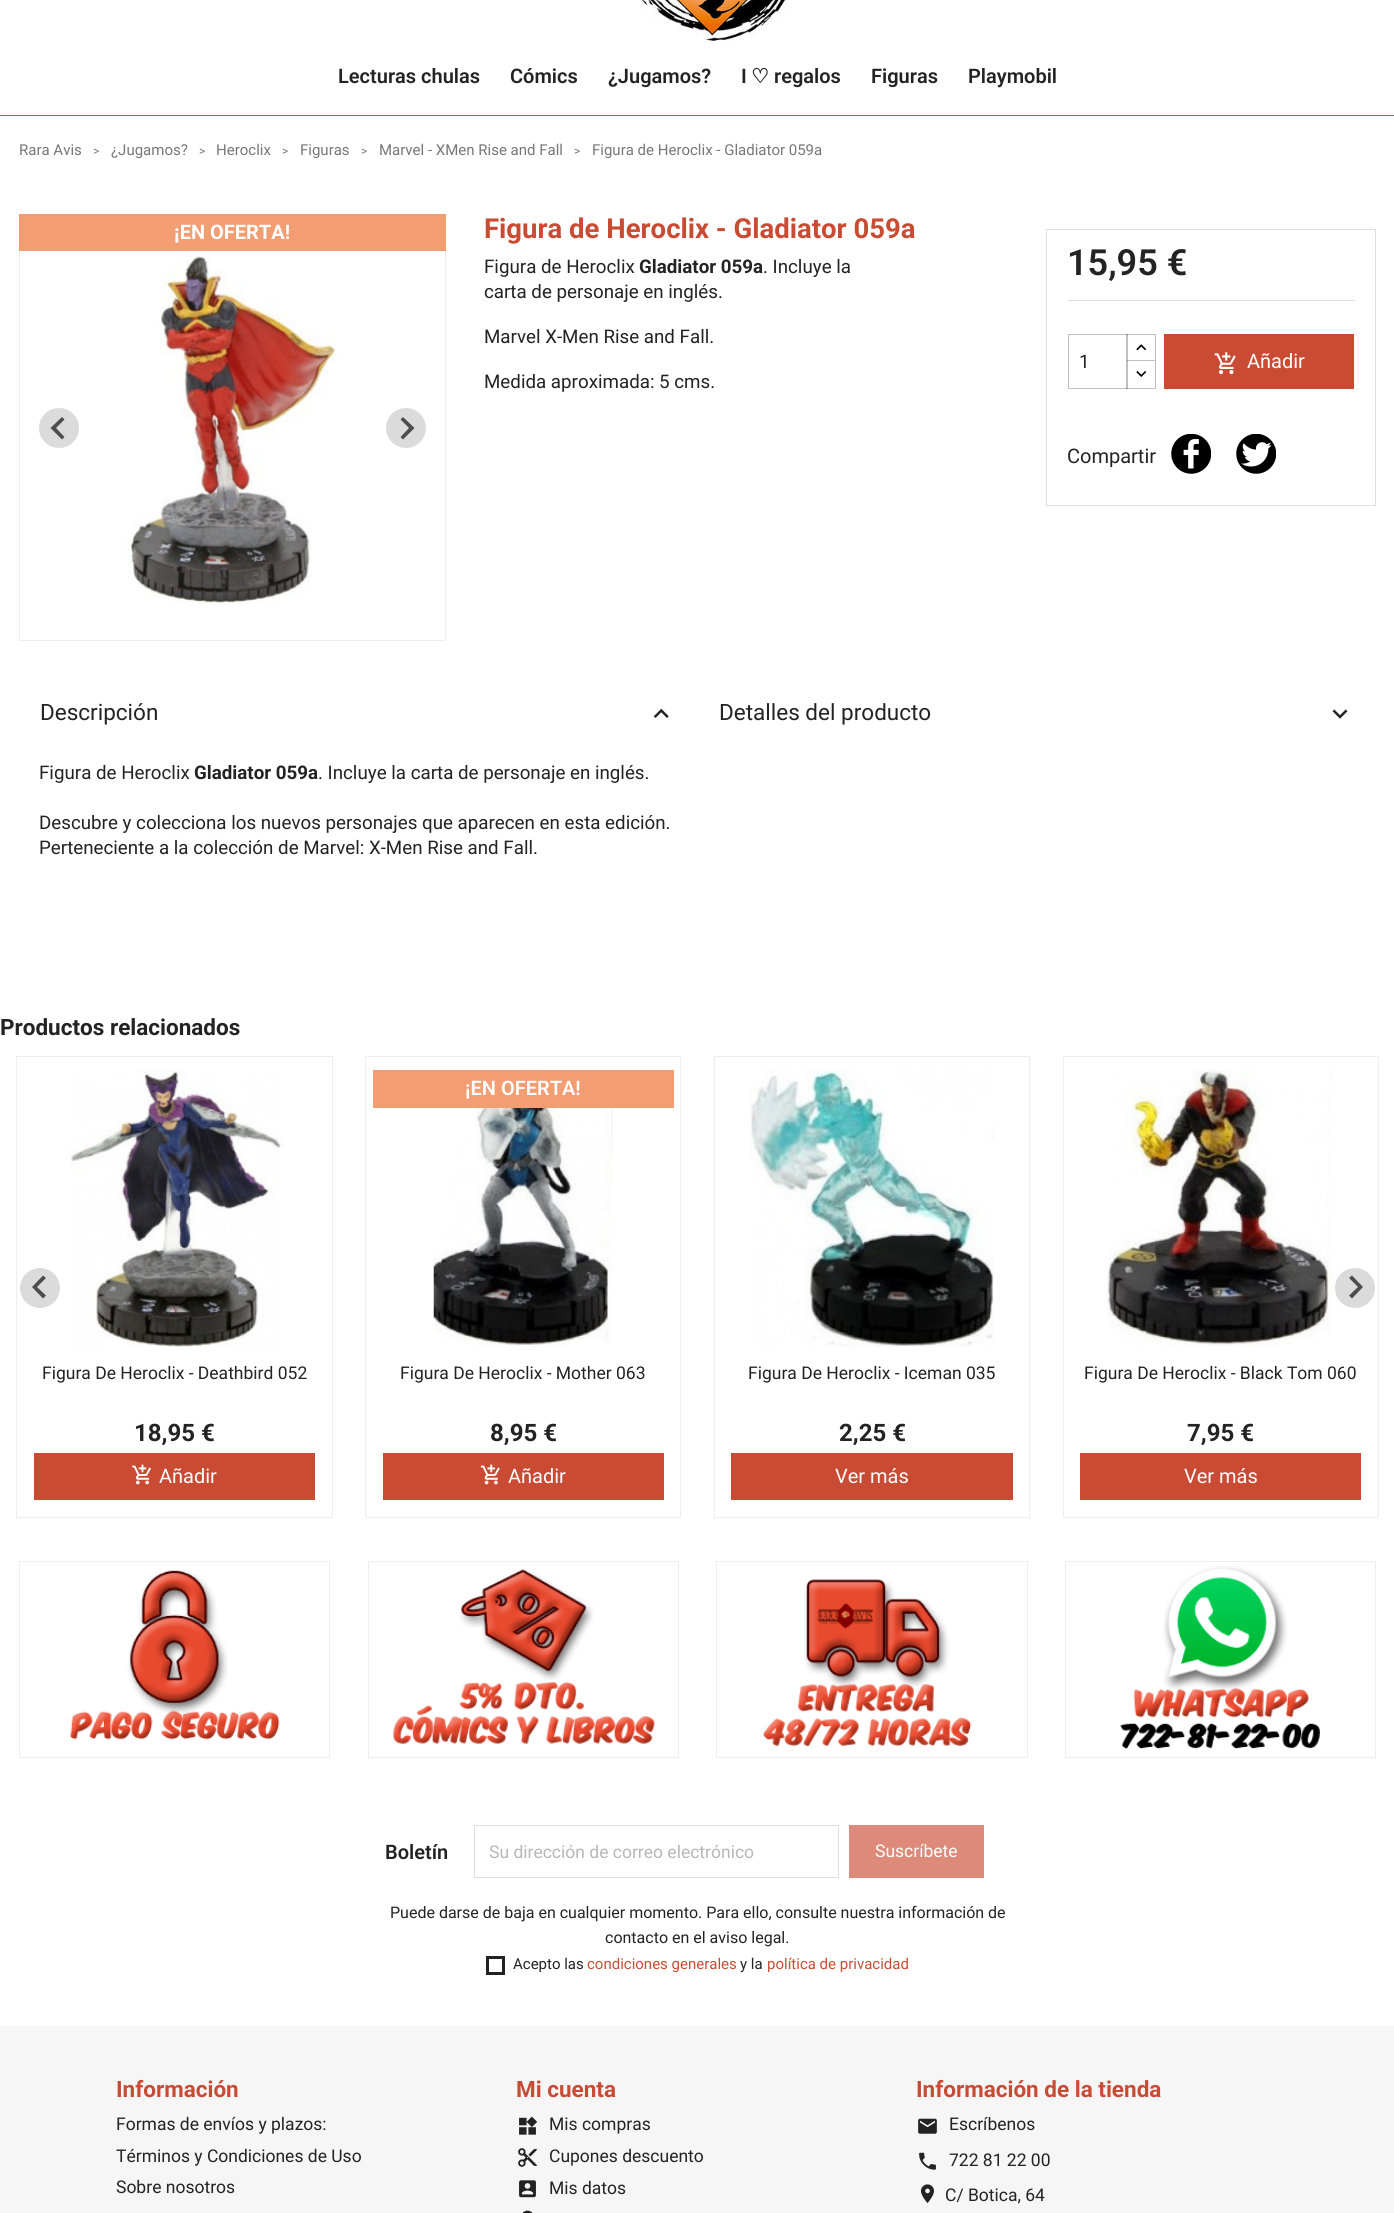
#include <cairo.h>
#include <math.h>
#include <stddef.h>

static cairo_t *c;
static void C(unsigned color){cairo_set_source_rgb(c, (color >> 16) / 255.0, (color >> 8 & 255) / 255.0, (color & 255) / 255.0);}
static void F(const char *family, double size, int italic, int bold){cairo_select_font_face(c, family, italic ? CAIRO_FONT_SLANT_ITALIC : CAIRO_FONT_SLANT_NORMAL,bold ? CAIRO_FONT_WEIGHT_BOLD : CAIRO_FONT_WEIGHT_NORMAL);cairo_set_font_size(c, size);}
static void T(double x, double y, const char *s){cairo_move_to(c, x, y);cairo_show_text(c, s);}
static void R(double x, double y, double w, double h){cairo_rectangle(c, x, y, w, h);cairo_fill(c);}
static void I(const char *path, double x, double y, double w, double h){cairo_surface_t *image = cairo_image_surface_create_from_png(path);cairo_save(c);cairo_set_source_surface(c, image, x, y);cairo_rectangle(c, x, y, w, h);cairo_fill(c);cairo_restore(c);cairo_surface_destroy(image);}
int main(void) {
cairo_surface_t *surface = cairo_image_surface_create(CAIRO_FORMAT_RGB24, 1394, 2213);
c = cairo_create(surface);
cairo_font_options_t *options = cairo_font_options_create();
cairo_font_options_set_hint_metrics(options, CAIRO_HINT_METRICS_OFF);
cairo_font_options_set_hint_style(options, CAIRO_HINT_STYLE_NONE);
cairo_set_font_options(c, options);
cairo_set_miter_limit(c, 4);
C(0xffffff);
cairo_paint(c);
C(0xca4b33);
R(0,115,1394,1);
I("1.png",641,0,146,41);
F("Roboto SemiBold",20,0,0);
C(0x232323);
T(338,83,"Lecturas chulas");
T(510,83,"Cómics");
T(608,83,"¿Jugamos?");
T(741,83,"I");
F("DejaVu Sans",20,0,1);
T(751,83,"♡");
F("Roboto SemiBold",20,0,0);
T(774,83,"regalos");
T(871,83,"Figuras");
T(968,83,"Playmobil");
F("Roboto",15,0,0);
C(0x777777);
T(19,155,"Rara Avis");
F("Roboto",12,0,0);
T(93,155,">");
F("Roboto",15,0,0);
T(111,155,"¿Jugamos?");
F("Roboto",12,0,0);
T(199,155,">");
F("Roboto",15,0,0);
T(216,155,"Heroclix");
F("Roboto",12,0,0);
T(282,155,">");
F("Roboto",15,0,0);
T(300,155,"Figuras");
F("Roboto",12,0,0);
T(361,155,">");
F("Roboto",15,0,0);
T(379,155,"Marvel - XMen Rise and Fall");
F("Roboto",12,0,0);
T(574,155,">");
F("Roboto",15,0,0);
T(592,155,"Figura de Heroclix - Gladiator 059a");
cairo_rectangle(c,19.5,214.5,426,426);
C(0xeeeeee);
cairo_set_line_width(c,1);
cairo_stroke(c);
I("2.png",127,254,210,350);
C(0xdbdbdb);
cairo_arc(c,59,428,20,0,2 * M_PI);
cairo_fill(c);
C(0x4d4d4d);
cairo_new_path(c);
cairo_move_to(c,62,417);
cairo_line_to(c,64.5,419.5);
cairo_line_to(c,56,428);
cairo_line_to(c,64.5,437);
cairo_line_to(c,62,439.5);
cairo_line_to(c,50.5,428);
cairo_close_path(c);
cairo_fill(c);
C(0xdbdbdb);
cairo_arc(c,406,428,20,0,2 * M_PI);
cairo_fill(c);
C(0x4d4d4d);
cairo_new_path(c);
cairo_move_to(c,403,417);
cairo_line_to(c,400.5,419.5);
cairo_line_to(c,409,428);
cairo_line_to(c,400.5,437);
cairo_line_to(c,403,439.5);
cairo_line_to(c,414.5,428);
cairo_close_path(c);
cairo_fill(c);
C(0xf39d72);
R(19,214,427,37);
F("Roboto",20,0,1);
C(0xffffff);
T(174,239,"¡EN OFERTA!");
F("Roboto",27.5,0,1);
C(0xca4b33);
T(484,238,"Figura de Heroclix - Gladiator 059a");
F("Roboto",18.75,0,0);
C(0x232323);
T(484,273,"Figura de Heroclix");
F("Roboto",18.75,0,1);
T(639,273,"Gladiator 059a");
F("Roboto",18.75,0,0);
T(763,273,". Incluye la");
T(484,298,"carta de personaje en inglés.");
T(484,343,"Marvel X-Men Rise and Fall.");
T(484,388,"Medida aproximada: 5 cms.");
cairo_rectangle(c,1046.5,229.5,329,276);
C(0xdfdfdf);
cairo_stroke(c);
R(1068,300,287,1);
F("Roboto SemiBold",36,0,0);
C(0x232323);
T(1067,275,"15,95 €");
cairo_rectangle(c,1126.5,334.5,29,28);
C(0xbfbfbf);
cairo_stroke(c);
C(0xffffff);
R(1127,362,28,1);
cairo_rectangle(c,1126.5,360.5,29,28);
C(0xbfbfbf);
cairo_stroke(c);
cairo_rectangle(c,1068.5,334.5,59,54);
cairo_set_source_rgba(c,0,0,0,0.25);
cairo_stroke(c);
F("Roboto",18.75,0,0);
C(0x232323);
T(1079,368,"1");
I("3.png",1136,344,11,7);
I("4.png",1136,371,11,6);
C(0xca4b33);
R(1164,334,190,55);
I("5.png",1214,352,22,23);
F("Roboto",20,0,0);
C(0xffffff);
T(1247,368,"Añadir");
C(0x232323);
T(1067,463,"Compartir");
I("6.png",1171,434,40,40);
I("7.png",1236,434,40,40);
F("Roboto",22.5,0,0);
T(40,720,"Descripción");
I("8.png",653,708,16,10);
F("Roboto",18.75,0,0);
T(39,779,"Figura de Heroclix");
F("Roboto",18.75,0,1);
T(194,779,"Gladiator 059a");
F("Roboto",18.75,0,0);
T(318,779,". Incluye la carta de personaje en inglés.");
T(39,829,"Descubre y colecciona los nuevos personajes que aparecen en esta edición.");
T(39,854,"Perteneciente a la colección de Marvel: X-Men Rise and Fall.");
F("Roboto",22.5,0,0);
T(719,720,"Detalles del producto");
I("9.png",1332,709,16,10);
F("Roboto",22.5,0,1);
T(0,1035,"Productos relacionados");
cairo_rectangle(c,16.5,1056.5,316,461);
C(0xeeeeee);
cairo_stroke(c);
I("10.png",69,1069,216,278);
F("Roboto",17.5,0,0);
C(0x232323);
T(42,1379,"Figura De Heroclix - Deathbird 052");
F("Roboto",24,0,1);
T(134,1441,"18,95 €");
C(0xca4b33);
R(34,1453,281,47);
I("11.png",132,1464,19,21);
F("Roboto",20,0,0);
C(0xffffff);
T(159,1483,"Añadir");
cairo_rectangle(c,365.5,1056.5,315,461);
C(0xeeeeee);
cairo_stroke(c);
I("12.png",433,1069,180,278);
C(0xf39d72);
R(373,1070,301,38);
F("Roboto SemiBold",20,0,0);
C(0xffffff);
T(465,1095,"¡EN OFERTA!");
F("Roboto",17.5,0,0);
C(0x232323);
T(400,1379,"Figura De Heroclix - Mother 063");
F("Roboto",24,0,1);
T(490,1441,"8,95 €");
C(0xca4b33);
R(383,1453,281,47);
I("13.png",480,1464,20,21);
F("Roboto",20,0,0);
C(0xffffff);
T(508,1483,"Añadir");
cairo_rectangle(c,714.5,1056.5,315,461);
C(0xeeeeee);
cairo_stroke(c);
I("14.png",750,1069,245,278);
F("Roboto",17.5,0,0);
C(0x232323);
T(748,1379,"Figura De Heroclix - Iceman 035");
F("Roboto",24,0,1);
T(839,1441,"2,25 €");
C(0xca4b33);
R(731,1453,282,47);
F("Roboto",20,0,0);
C(0xffffff);
T(835,1483,"Ver más");
cairo_rectangle(c,1063.5,1056.5,315,461);
C(0xeeeeee);
cairo_stroke(c);
I("15.png",1107,1069,226,278);
F("Roboto",17.5,0,0);
C(0x232323);
T(1084,1379,"Figura De Heroclix - Black Tom 060");
F("Roboto",24,0,1);
T(1187,1441,"7,95 €");
C(0xca4b33);
R(1080,1453,281,47);
F("Roboto",20,0,0);
C(0xffffff);
T(1184,1483,"Ver más");
C(0xdbdbdb);
cairo_new_path(c);
cairo_arc(c,40,1288,20,0,2 * M_PI);
cairo_fill(c);
C(0x4d4d4d);
cairo_new_path(c);
cairo_move_to(c,43,1275.5);
cairo_line_to(c,46,1278);
cairo_line_to(c,37,1287);
cairo_line_to(c,46,1295.5);
cairo_line_to(c,43,1298.5);
cairo_line_to(c,32,1287);
cairo_close_path(c);
cairo_fill(c);
C(0xdbdbdb);
cairo_arc(c,1355,1288,20,0,2 * M_PI);
cairo_fill(c);
C(0x4d4d4d);
cairo_new_path(c);
cairo_move_to(c,1352,1275.5);
cairo_line_to(c,1349,1278);
cairo_line_to(c,1358,1287);
cairo_line_to(c,1349,1295.5);
cairo_line_to(c,1352,1298.5);
cairo_line_to(c,1363,1287);
cairo_close_path(c);
cairo_fill(c);
cairo_rectangle(c,19.5,1561.5,310,196);
C(0xeeeeee);
cairo_stroke(c);
I("16.png",70,1570,210,170);
cairo_rectangle(c,368.5,1561.5,310,196);
cairo_stroke(c);
I("17.png",393,1569,262,175);
cairo_rectangle(c,716.5,1561.5,311,196);
cairo_stroke(c);
I("18.png",762,1579,210,168);
cairo_rectangle(c,1065.5,1561.5,310,196);
cairo_stroke(c);
I("19.png",1120,1566,200,184);
C(0xf6f6f6);
R(0,2026,1394,187);
cairo_rectangle(c,474.5,1825.5,364,52);
C(0xdfdfdf);
cairo_stroke(c);
F("Roboto",17.5,0,0);
C(0xb7b7b7);
T(489,1858,"Su dirección de correo electrónico");
C(0xdd8a7a);
R(849,1825,135,53);
C(0xffffff);
T(875,1857,"Suscríbete");
F("Roboto",16,0,0);
C(0x232323);
T(390,1918,"Puede darse de baja en cualquier momento. Para ello, consulte nuestra información de");
T(605,1943,"contacto en el aviso legal.");
cairo_rectangle(c,487.5,1957.5,16,16);
cairo_set_line_width(c,3);
cairo_stroke(c);
F("Roboto",15,0,0);
T(513,1969,"Acepto las");
C(0xca4b33);
T(587,1969,"condiciones generales");
C(0x232323);
T(740,1969,"y la");
C(0xca4b33);
T(767,1969,"política de privacidad");
F("Roboto SemiBold",20,0,0);
C(0x232323);
T(385,1859,"Boletín");
F("Roboto",22.5,0,1);
C(0xca4b33);
T(116,2097,"Información");
F("Roboto",17.5,0,0);
C(0x232323);
T(116,2130,"Formas de envíos y plazos:");
T(116,2162,"Términos y Condiciones de Uso");
T(116,2193,"Sobre nosotros");
F("Roboto",22.5,0,1);
C(0xca4b33);
T(516,2097,"Mi cuenta");
I("20.png",519,2116,19,19);
F("Roboto",17.5,0,0);
C(0x232323);
T(549,2130,"Mis compras");
I("21.png",518,2148,19,19);
T(549,2162,"Cupones descuento");
I("22.png",519,2180,17,18);
T(549,2194,"Mis datos");
I("23.png",522,2210,11,3);
F("Roboto",22.5,0,1);
C(0xca4b33);
T(916,2097,"Información de la tienda");
I("24.png",918,2118,19,16);
F("Roboto",17.5,0,0);
C(0x232323);
T(949,2130,"Escríbenos");
I("25.png",919,2152,17,18);
T(949,2166,"722 81 22 00");
I("26.png",921,2184,13,19);
T(945,2201,"C/ Botica, 64");
cairo_surface_write_to_png(surface, "o.png");
cairo_font_options_destroy(options);
cairo_destroy(c);
cairo_surface_destroy(surface);
return 0;
}
